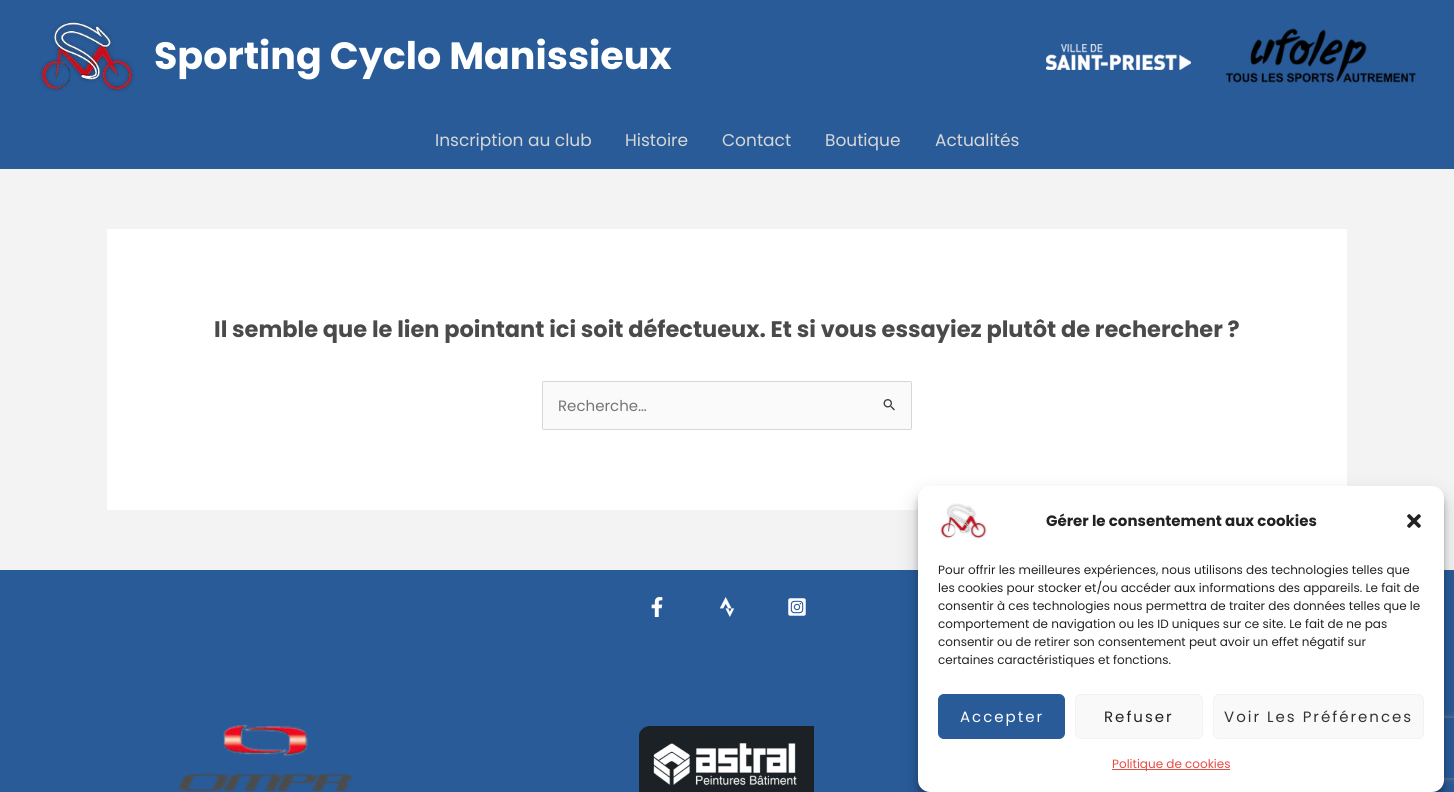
#include <cairo.h>
#include <math.h>
#include <stddef.h>

static cairo_t *c;
static void C(unsigned color){cairo_set_source_rgb(c, (color >> 16) / 255.0, (color >> 8 & 255) / 255.0, (color & 255) / 255.0);}
static void F(const char *family, double size, int italic, int bold){cairo_select_font_face(c, family, italic ? CAIRO_FONT_SLANT_ITALIC : CAIRO_FONT_SLANT_NORMAL,bold ? CAIRO_FONT_WEIGHT_BOLD : CAIRO_FONT_WEIGHT_NORMAL);cairo_set_font_size(c, size);}
static void T(double x, double y, const char *s){cairo_move_to(c, x, y);cairo_show_text(c, s);}
static void L(double x, double y, const char *s, double letter, double word){cairo_move_to(c, x, y);while (*s) {char ch[5] = {0};int n = 0;do ch[n++] = *s++; while ((*s & 0xC0) == 0x80);cairo_show_text(c, ch);cairo_rel_move_to(c, letter + word * (*ch == ' '), 0);}}
static void R(double x, double y, double w, double h){cairo_rectangle(c, x, y, w, h);cairo_fill(c);}
static void Q(double x, double y, double w, double h, double r){cairo_new_sub_path(c);cairo_arc(c, x + w - r, y + h - r, r, 0, M_PI / 2);cairo_arc(c, x + r, y + h - r, r, M_PI / 2, M_PI);cairo_arc(c, x + r, y + r, r, M_PI, 1.5 * M_PI);cairo_arc(c, x + w - r, y + r, r, 1.5 * M_PI, 2 * M_PI);cairo_close_path(c);}
static void S(double x, double y, double w, double h, double r, double blur, double alpha){cairo_push_group_with_content(c, CAIRO_CONTENT_ALPHA);cairo_set_operator(c, CAIRO_OPERATOR_SOURCE);for (int i = 15; i >= -15 && fmin(w, h) + blur * i / 3 > 0; i -= 2) {double e = blur * i / 6;cairo_set_source_rgba(c, 0, 0, 0, alpha * erfc((i - 1) / 8.5) / 2);Q(x - e, y - e, w + 2 * e, h + 2 * e, fmax(0, fmin(r + e + blur * .6, fmin(w, h) / 2 + e)));cairo_fill(c);}cairo_pattern_t *soft = cairo_pop_group(c);cairo_mask(c, soft);cairo_pattern_destroy(soft);}
static void I(const char *path, double x, double y, double w, double h){cairo_surface_t *image = cairo_image_surface_create_from_png(path);cairo_save(c);cairo_set_source_surface(c, image, x, y);cairo_rectangle(c, x, y, w, h);cairo_fill(c);cairo_restore(c);cairo_surface_destroy(image);}
int main(void) {
cairo_surface_t *surface = cairo_image_surface_create(CAIRO_FORMAT_RGB24, 1454, 792);
c = cairo_create(surface);
cairo_font_options_t *options = cairo_font_options_create();
cairo_font_options_set_hint_metrics(options, CAIRO_HINT_METRICS_OFF);
cairo_font_options_set_hint_style(options, CAIRO_HINT_STYLE_NONE);
cairo_set_font_options(c, options);
cairo_set_miter_limit(c, 4);
C(0xf3f3f3);
cairo_paint(c);
C(0x295b99);
R(0,0,1454,169);
I("1.png",39,20,96,72);
F("Poppins",38,0,1);
C(0xffffff);
T(154,69,"Sporting Cyclo Manissieux");
I("2.png",1046,44,145,26);
I("3.png",1225,28,192,55);
F("Poppins",17,0,0);
C(0xd7d7d7);
T(435,146,"Inscription au club");
T(625,146,"Histoire");
T(722,146,"Contact");
T(825,146,"Boutique");
T(935,146,"Actualités");
C(0xffffff);
R(107,229,1240,281);
F("Poppins",22.5,0,1);
C(0x4a4a4a);
T(214,337,"Il semble que le lien pointant ici soit défectueux. Et si vous essayiez plutôt de rechercher ?");
C(0xfafafa);
Q(542.5,381.5,369,48,1.5);
cairo_fill_preserve(c);
C(0xd7d7d7);
cairo_set_line_width(c,1);
cairo_stroke(c);
F("Poppins",15,0,0);
C(0x757575);
T(558,411,"Recherche…");
I("4.png",883,399,12,12);
C(0x295b99);
R(0,570,1454,222);
I("5.png",651,597,12,20);
I("6.png",719,597,16,20);
I("7.png",788,598,18,18);
I("8.png",178,724,175,68);
I("9.png",639,726,175,66);
C(0x000000);
S(918,492,526,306,12,3,.23);
S(918,496,526,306,12,10,.19);
cairo_save(c);
cairo_set_fill_rule(c,CAIRO_FILL_RULE_EVEN_ODD);
cairo_new_path(c);
cairo_move_to(c,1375,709);
cairo_line_to(c,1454,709);
cairo_line_to(c,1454,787);
cairo_line_to(c,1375,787);
cairo_close_path(c);
cairo_move_to(c,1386,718);
cairo_line_to(c,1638,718);
cairo_curve_to(c,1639,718,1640,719,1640,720);
cairo_line_to(c,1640,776);
cairo_curve_to(c,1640,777,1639,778,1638,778);
cairo_line_to(c,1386,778);
cairo_curve_to(c,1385,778,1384,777,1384,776);
cairo_line_to(c,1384,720);
cairo_curve_to(c,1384,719,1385,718,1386,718);
cairo_close_path(c);
cairo_clip(c);
C(0x808080);
S(1384,718,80,60,2,2.5,1);
cairo_restore(c);
C(0xffffff);
Q(918,486,526,306,12);
cairo_fill(c);
I("10.png",940,503,47,36);
F("Poppins",15,0,1);
C(0x222222);
T(1046,526,"Gérer le consentement aux cookies");
I("11.png",1407,514,14,14);
F("Poppins",12,0,0);
T(938,574,"Pour offrir les meilleures expériences, nous utilisons des technologies telles que");
T(938,592,"les cookies pour stocker et/ou accéder aux informations des appareils. Le fait de");
T(938,610,"consentir à ces technologies nous permettra de traiter des données telles que le");
T(938,628,"comportement de navigation ou les ID uniques sur ce site. Le fait de ne pas");
T(938,646,"consentir ou de retirer son consentement peut avoir un effet négatif sur");
T(938,664,"certaines caractéristiques et fonctions.");
C(0x295b99);
Q(938.5,694.5,126,44,5.5);
cairo_fill_preserve(c);
cairo_stroke(c);
F("Poppins",15,0,0);
C(0xffffff);
L(960,722,"Accepter",2,0);
C(0xf9f9f9);
Q(1075.5,694.5,127,44,5.5);
cairo_fill_preserve(c);
C(0xf2f2f2);
cairo_stroke(c);
C(0x222222);
L(1104,722,"Refuser",2,0);
C(0xf9f9f9);
Q(1213.5,694.5,210,44,5.5);
cairo_fill_preserve(c);
C(0xf2f2f2);
cairo_stroke(c);
C(0x333333);
L(1224,722,"Voir Les Préférences",2,0);
C(0xe44b43);
R(1112,769,118,1);
F("Poppins",12,0,0);
T(1112,768,"Politique de cookies");
cairo_surface_write_to_png(surface, "o.png");
cairo_font_options_destroy(options);
cairo_destroy(c);
cairo_surface_destroy(surface);
return 0;
}
